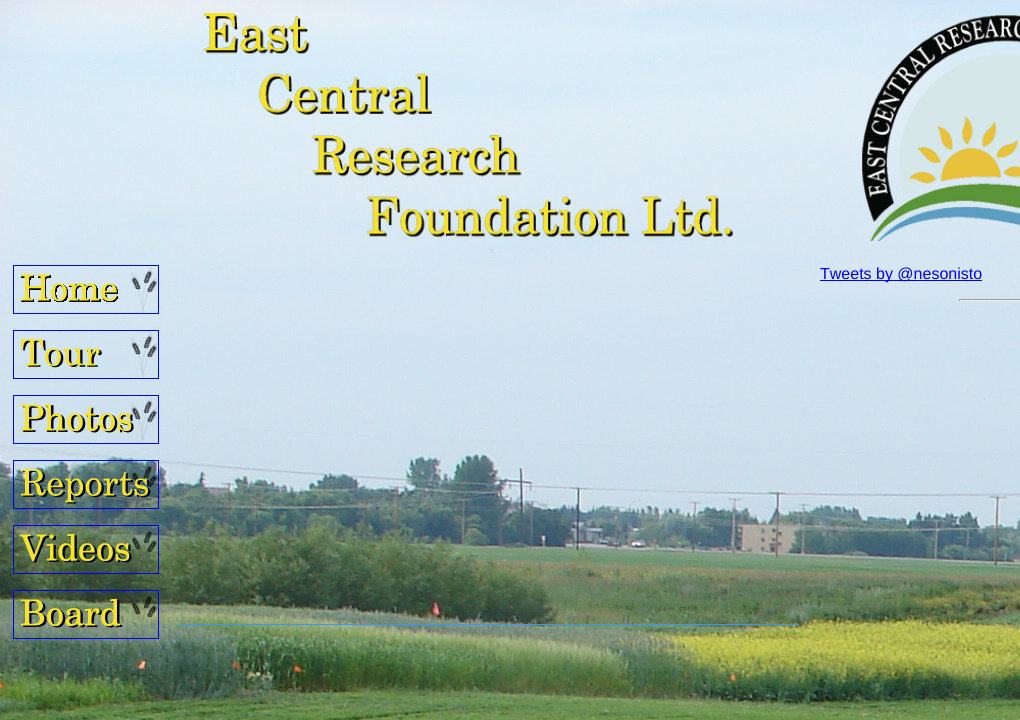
#include <cairo.h>
#include <math.h>
#include <stddef.h>

static cairo_t *c;
static void C(unsigned color){cairo_set_source_rgb(c, (color >> 16) / 255.0, (color >> 8 & 255) / 255.0, (color & 255) / 255.0);}
static void F(const char *family, double size, int italic, int bold){cairo_select_font_face(c, family, italic ? CAIRO_FONT_SLANT_ITALIC : CAIRO_FONT_SLANT_NORMAL,bold ? CAIRO_FONT_WEIGHT_BOLD : CAIRO_FONT_WEIGHT_NORMAL);cairo_set_font_size(c, size);}
static void T(double x, double y, const char *s){cairo_move_to(c, x, y);cairo_show_text(c, s);}
static void R(double x, double y, double w, double h){cairo_rectangle(c, x, y, w, h);cairo_fill(c);}
static void I(const char *path, double x, double y, double w, double h){cairo_surface_t *image = cairo_image_surface_create_from_png(path);cairo_save(c);cairo_set_source_surface(c, image, x, y);cairo_rectangle(c, x, y, w, h);cairo_fill(c);cairo_restore(c);cairo_surface_destroy(image);}
int main(void) {
cairo_surface_t *surface = cairo_image_surface_create(CAIRO_FORMAT_RGB24, 1020, 720);
c = cairo_create(surface);
cairo_font_options_t *options = cairo_font_options_create();
cairo_font_options_set_hint_metrics(options, CAIRO_HINT_METRICS_OFF);
cairo_font_options_set_hint_style(options, CAIRO_HINT_STYLE_NONE);
cairo_set_font_options(c, options);
cairo_set_miter_limit(c, 4);
C(0xffffff);
cairo_paint(c);
I("1.png",0,0,1020,720);
I("2.png",204,13,816,228);
cairo_rectangle(c,13.5,265.5,145,48);
C(0x0000ee);
cairo_set_line_width(c,1);
cairo_stroke(c);
I("3.png",20,266,138,47);
cairo_rectangle(c,13.5,330.5,145,48);
cairo_stroke(c);
I("4.png",21,331,137,47);
cairo_rectangle(c,13.5,395.5,145,48);
cairo_stroke(c);
I("5.png",20,396,138,47);
cairo_rectangle(c,13.5,460.5,145,48);
cairo_stroke(c);
I("6.png",20,461,138,47);
cairo_rectangle(c,13.5,525.5,145,48);
cairo_stroke(c);
I("7.png",19,526,139,47);
cairo_rectangle(c,13.5,590.5,145,48);
cairo_stroke(c);
I("8.png",21,592,137,46);
R(820,280,162,1);
F("Liberation Sans",16,0,0);
T(820,279,"Tweets by @nesonisto");
C(0x9f9f9f);
R(959,299,61,1);
C(0xeeeeee);
R(959,300,61,1);
C(0x9f9f9f);
R(959,299,1,2);
C(0x3399ff);
R(179,624,620,1);
cairo_surface_write_to_png(surface, "o.png");
cairo_font_options_destroy(options);
cairo_destroy(c);
cairo_surface_destroy(surface);
return 0;
}
